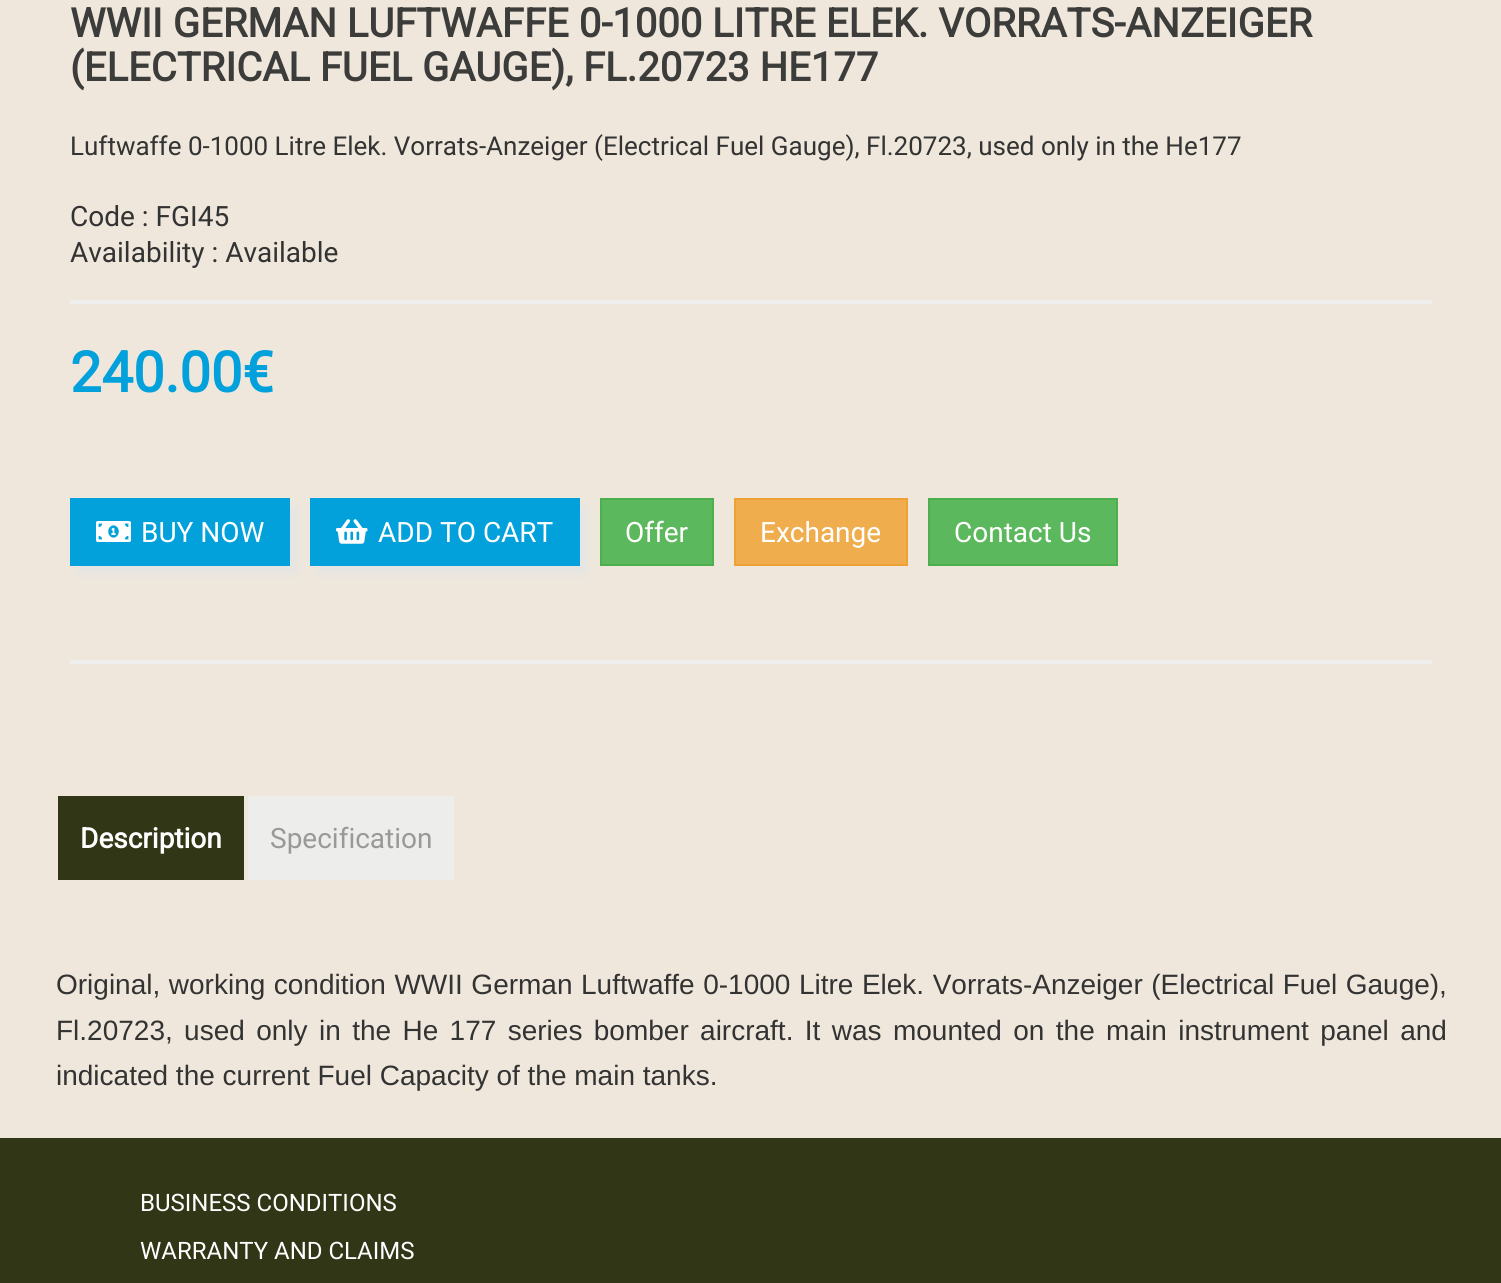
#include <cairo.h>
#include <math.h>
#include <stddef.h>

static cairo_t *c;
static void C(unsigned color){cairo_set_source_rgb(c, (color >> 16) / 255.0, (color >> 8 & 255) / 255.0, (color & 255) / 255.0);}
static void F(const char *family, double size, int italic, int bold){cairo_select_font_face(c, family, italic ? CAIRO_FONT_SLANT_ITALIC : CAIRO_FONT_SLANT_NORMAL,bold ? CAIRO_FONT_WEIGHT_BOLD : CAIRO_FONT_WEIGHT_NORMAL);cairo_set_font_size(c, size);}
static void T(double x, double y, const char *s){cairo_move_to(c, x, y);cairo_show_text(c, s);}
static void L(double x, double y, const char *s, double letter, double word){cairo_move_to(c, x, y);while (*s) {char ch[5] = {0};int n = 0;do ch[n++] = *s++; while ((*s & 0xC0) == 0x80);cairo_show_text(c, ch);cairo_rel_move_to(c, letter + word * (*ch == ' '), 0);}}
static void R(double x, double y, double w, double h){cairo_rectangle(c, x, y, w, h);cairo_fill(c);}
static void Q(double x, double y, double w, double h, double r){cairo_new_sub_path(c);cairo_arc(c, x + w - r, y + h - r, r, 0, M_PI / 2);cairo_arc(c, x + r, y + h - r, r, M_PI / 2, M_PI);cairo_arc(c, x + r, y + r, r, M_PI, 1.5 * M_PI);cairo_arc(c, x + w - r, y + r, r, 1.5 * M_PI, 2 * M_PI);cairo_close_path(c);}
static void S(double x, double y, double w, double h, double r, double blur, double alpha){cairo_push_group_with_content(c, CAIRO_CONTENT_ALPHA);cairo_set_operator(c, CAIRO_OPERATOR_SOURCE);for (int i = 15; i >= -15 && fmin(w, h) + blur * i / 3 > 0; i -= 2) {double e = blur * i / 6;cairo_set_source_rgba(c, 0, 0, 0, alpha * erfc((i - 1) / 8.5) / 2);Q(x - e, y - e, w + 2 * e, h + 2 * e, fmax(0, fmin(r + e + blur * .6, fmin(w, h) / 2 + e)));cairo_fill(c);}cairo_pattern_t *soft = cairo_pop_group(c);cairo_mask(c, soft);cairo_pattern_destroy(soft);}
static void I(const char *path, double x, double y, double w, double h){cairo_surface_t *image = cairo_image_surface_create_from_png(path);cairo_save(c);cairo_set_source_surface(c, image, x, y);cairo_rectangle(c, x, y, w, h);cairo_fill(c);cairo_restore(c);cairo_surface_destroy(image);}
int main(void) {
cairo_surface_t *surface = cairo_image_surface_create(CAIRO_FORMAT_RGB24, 1501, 1283);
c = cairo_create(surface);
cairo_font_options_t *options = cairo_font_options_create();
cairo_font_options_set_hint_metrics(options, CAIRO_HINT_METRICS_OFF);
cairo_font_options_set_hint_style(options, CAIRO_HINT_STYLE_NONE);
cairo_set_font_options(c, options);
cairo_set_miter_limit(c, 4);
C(0xefe7db);
cairo_paint(c);
F("Roboto",40,0,1);
C(0x3c3c3b);
T(70,37,"WWII GERMAN LUFTWAFFE 0-1000 LITRE ELEK. VORRATS-ANZEIGER");
T(70,81,"(ELECTRICAL FUEL GAUGE), FL.20723 HE177");
F("Roboto",26,0,0);
C(0x333333);
T(70,155,"Luftwaffe 0-1000 Litre Elek. Vorrats-Anzeiger (Electrical Fuel Gauge), Fl.20723, used only in the He177");
F("Roboto",28,0,0);
T(70,226,"Code : FGI45");
T(70,262,"Availability : Available");
C(0xeeeeee);
R(70,300,1362,4);
F("Roboto",56,0,1);
C(0x03a1db);
T(70,392,"240.00€");
C(0xe5e5e5);
S(78,506,220,68,0,5,1);
C(0x03a1db);
R(70,498,220,68);
I("1.png",96,521,35,21);
F("Roboto",28,0,0);
C(0xffffff);
T(141,542,"BUY NOW");
C(0xe5e5e5);
S(318,506,270,68,0,5,1);
C(0x03a1db);
R(310,498,270,68);
I("2.png",336,519,32,25);
C(0xffffff);
T(378,542,"ADD TO CART");
C(0x5cb85c);
cairo_rectangle(c,601,499,112,66);
cairo_fill_preserve(c);
C(0x4cae4c);
cairo_stroke(c);
C(0xffffff);
T(625,542,"Offer");
C(0xf0ad4e);
cairo_rectangle(c,735,499,172,66);
cairo_fill_preserve(c);
C(0xeea236);
cairo_stroke(c);
C(0xffffff);
T(760,542,"Exchange");
C(0x5cb85c);
cairo_rectangle(c,929,499,188,66);
cairo_fill_preserve(c);
C(0x4cae4c);
cairo_stroke(c);
C(0xffffff);
T(954,542,"Contact Us");
C(0xeeeeee);
R(70,660,1362,4);
C(0x313616);
R(58,796,186,84);
F("Roboto",28,0,1);
C(0xffffff);
T(80,848,"Description");
C(0xededec);
R(248,796,206,84);
F("Roboto",28,0,0);
C(0x999999);
T(270,848,"Specification");
F("Liberation Sans",28,0,0);
C(0x333333);
L(56,994,"Original, working condition WWII German Luftwaffe 0-1000 Litre Elek. Vorrats-Anzeiger (Electrical Fuel Gauge),",0,.75);
L(56,1040,"Fl.20723, used only in the He 177 series bomber aircraft. It was mounted on the main instrument panel and",0,3.6);
T(56,1085,"indicated the current Fuel Capacity of the main tanks.");
C(0x313616);
R(0,1138,1501,145);
F("Roboto",24,0,0);
C(0xffffff);
T(140,1211,"BUSINESS CONDITIONS");
T(140,1259,"WARRANTY AND CLAIMS");
cairo_surface_write_to_png(surface, "o.png");
cairo_font_options_destroy(options);
cairo_destroy(c);
cairo_surface_destroy(surface);
return 0;
}
